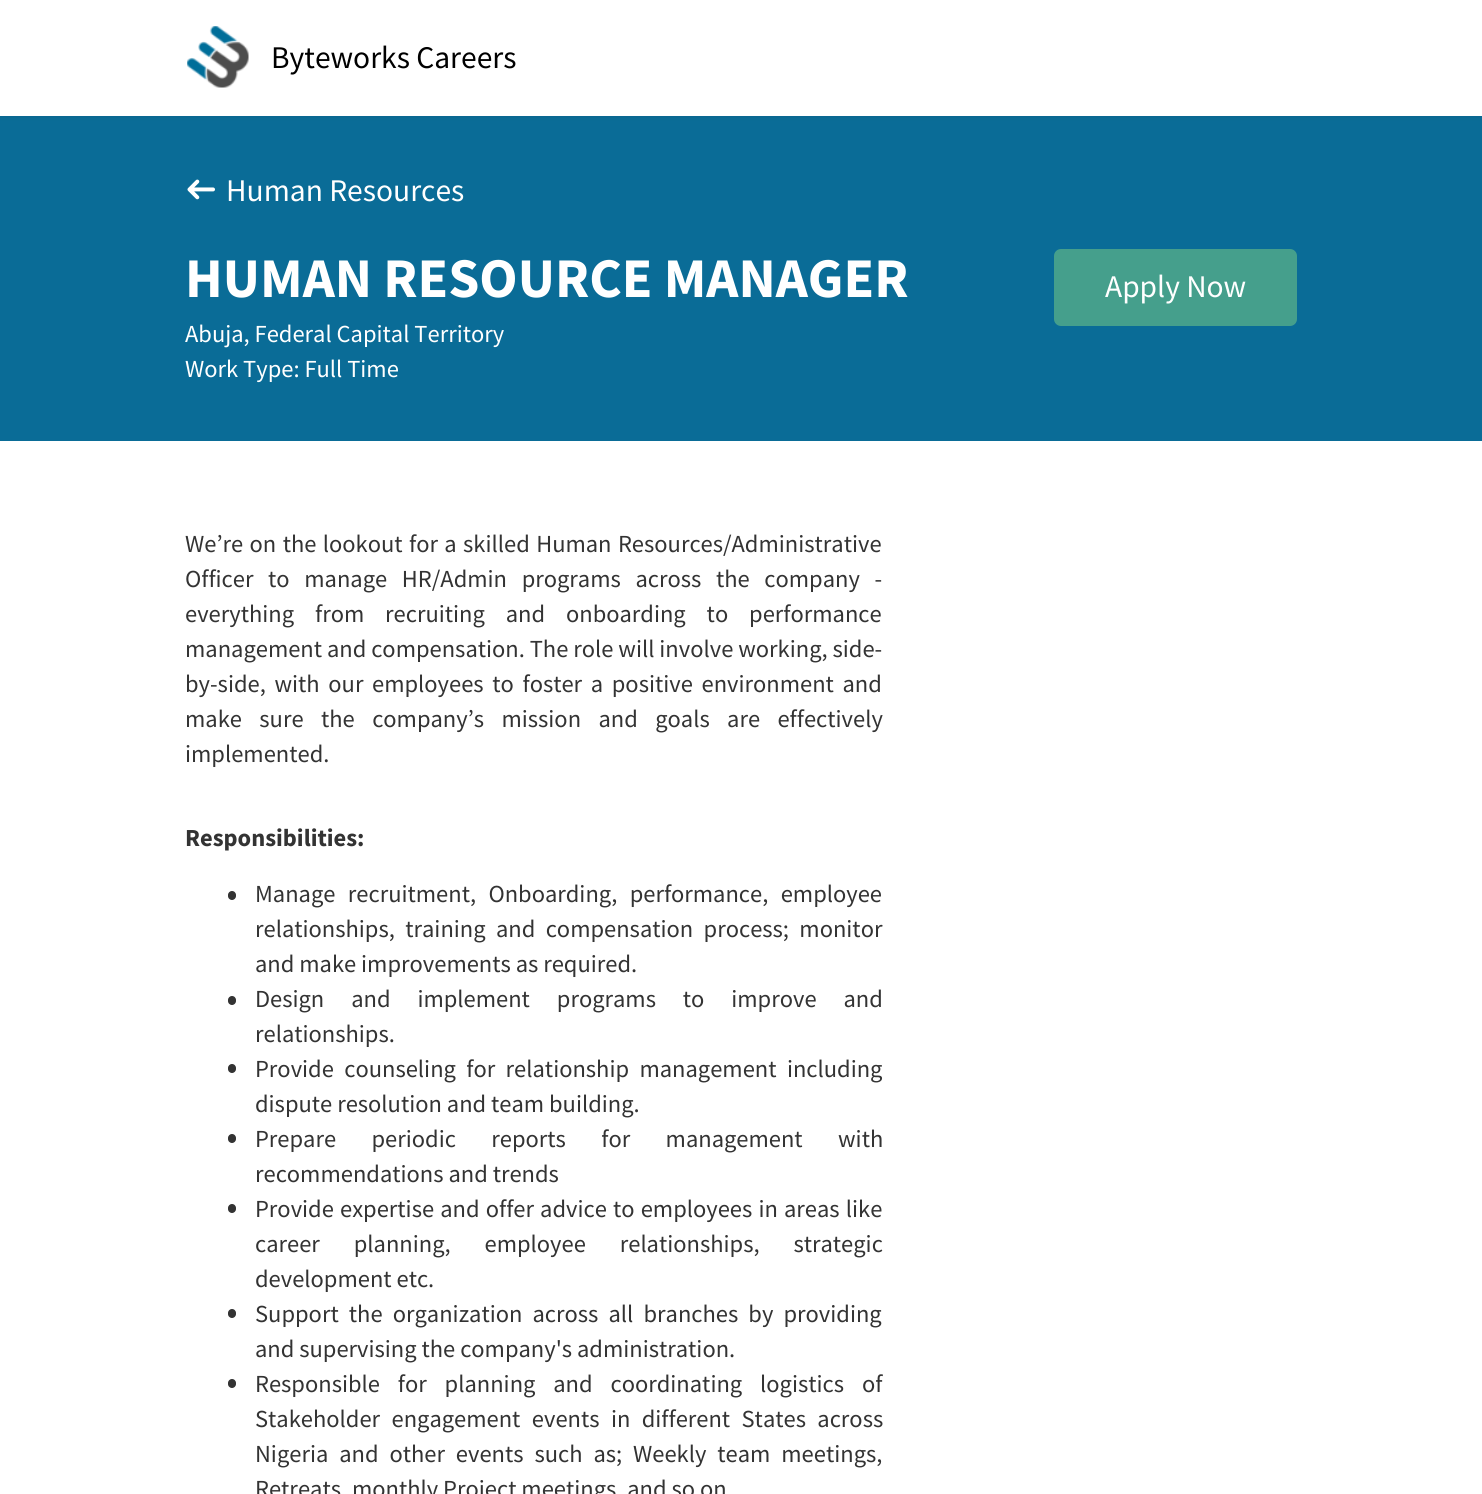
#include <cairo.h>
#include <math.h>
#include <stddef.h>

static cairo_t *c;
static void C(unsigned color){cairo_set_source_rgb(c, (color >> 16) / 255.0, (color >> 8 & 255) / 255.0, (color & 255) / 255.0);}
static void F(const char *family, double size, int italic, int bold){cairo_select_font_face(c, family, italic ? CAIRO_FONT_SLANT_ITALIC : CAIRO_FONT_SLANT_NORMAL,bold ? CAIRO_FONT_WEIGHT_BOLD : CAIRO_FONT_WEIGHT_NORMAL);cairo_set_font_size(c, size);}
static void T(double x, double y, const char *s){cairo_move_to(c, x, y);cairo_show_text(c, s);}
static void L(double x, double y, const char *s, double letter, double word){cairo_move_to(c, x, y);while (*s) {char ch[5] = {0};int n = 0;do ch[n++] = *s++; while ((*s & 0xC0) == 0x80);cairo_show_text(c, ch);cairo_rel_move_to(c, letter + word * (*ch == ' '), 0);}}
static void R(double x, double y, double w, double h){cairo_rectangle(c, x, y, w, h);cairo_fill(c);}
static void Q(double x, double y, double w, double h, double r){cairo_new_sub_path(c);cairo_arc(c, x + w - r, y + h - r, r, 0, M_PI / 2);cairo_arc(c, x + r, y + h - r, r, M_PI / 2, M_PI);cairo_arc(c, x + r, y + r, r, M_PI, 1.5 * M_PI);cairo_arc(c, x + w - r, y + r, r, 1.5 * M_PI, 2 * M_PI);cairo_close_path(c);}
static void S(double x, double y, double w, double h, double r, double blur, double alpha){cairo_push_group_with_content(c, CAIRO_CONTENT_ALPHA);cairo_set_operator(c, CAIRO_OPERATOR_SOURCE);for (int i = 15; i >= -15 && fmin(w, h) + blur * i / 3 > 0; i -= 2) {double e = blur * i / 6;cairo_set_source_rgba(c, 0, 0, 0, alpha * erfc((i - 1) / 8.5) / 2);Q(x - e, y - e, w + 2 * e, h + 2 * e, fmax(0, fmin(r + e + blur * .6, fmin(w, h) / 2 + e)));cairo_fill(c);}cairo_pattern_t *soft = cairo_pop_group(c);cairo_mask(c, soft);cairo_pattern_destroy(soft);}
static void I(const char *path, double x, double y, double w, double h){cairo_surface_t *image = cairo_image_surface_create_from_png(path);cairo_save(c);cairo_set_source_surface(c, image, x, y);cairo_rectangle(c, x, y, w, h);cairo_fill(c);cairo_restore(c);cairo_surface_destroy(image);}
int main(void) {
cairo_surface_t *surface = cairo_image_surface_create(CAIRO_FORMAT_RGB24, 1482, 1494);
c = cairo_create(surface);
cairo_font_options_t *options = cairo_font_options_create();
cairo_font_options_set_hint_metrics(options, CAIRO_HINT_METRICS_OFF);
cairo_font_options_set_hint_style(options, CAIRO_HINT_STYLE_NONE);
cairo_set_font_options(c, options);
cairo_set_miter_limit(c, 4);
C(0xffffff);
cairo_paint(c);
C(0x0a6c97);
R(0,116,1482,325);
C(0x183247);
S(0,0,1482,116,0,2.5,.2);
C(0xffffff);
R(0,0,1482,116);
I("1.png",187,26,62,62);
F("Source Sans Pro",31.5,0,0);
C(0x000000);
T(271,68,"Byteworks Careers");
I("2.png",187,179,28,21);
C(0xffffff);
T(226,201,"Human Resources");
F("Source Sans Pro",56,0,1);
T(185,297,"HUMAN RESOURCE MANAGER");
F("Source Sans Pro",24.5,0,0);
T(185,342,"Abuja, Federal Capital Territory");
T(185,377,"Work Type: Full Time");
C(0x459f8c);
Q(1054,249,243,77,7);
cairo_fill(c);
F("Source Sans Pro",31.5,0,0);
C(0xffffff);
T(1105,297,"Apply Now");
F("Source Sans Pro",24.5,0,0);
C(0x333333);
L(185,552,"We’re on the lookout for a skilled Human Resources/Administrative",0,1.5);
L(185,587,"Officer to manage HR/Admin programs across the company -",0,9.75);
L(185,622,"everything from recruiting and onboarding to performance",0,16);
T(185,657,"management and compensation. The role will involve working, side-");
L(185,692,"by-side, with our employees to foster a positive environment and",0,3.75);
L(185,727,"make sure the company’s mission and goals are effectively",0,12.5);
T(185,762,"implemented.");
F("Source Sans Pro",24.5,0,1);
T(185,846,"Responsibilities:");
Q(228,891,8,9,4);
cairo_fill(c);
F("Source Sans Pro",24.5,0,0);
L(255,902,"Manage recruitment, Onboarding, performance, employee",0,7.5);
L(255,937,"relationships, training and compensation process; monitor",0,5.5);
T(255,972,"and make improvements as required.");
Q(228,996,8,9,4);
cairo_fill(c);
L(255,1007,"Design and implement programs to improve and",0,22);
T(255,1042,"relationships.");
Q(228,1064,8,9,4);
cairo_fill(c);
L(255,1077,"Provide counseling for relationship management including",0,5.5);
T(255,1112,"dispute resolution and team building.");
Q(228,1134,8,9,4);
cairo_fill(c);
L(255,1147,"Prepare periodic reports for management with",0,30.5);
T(255,1182,"recommendations and trends");
Q(228,1204,8,9,4);
cairo_fill(c);
L(255,1217,"Provide expertise and offer advice to employees in areas like",0,1.25);
L(255,1252,"career planning, employee relationships, strategic",0,29);
T(255,1287,"development etc.");
Q(228,1309,8,9,4);
cairo_fill(c);
L(255,1322,"Support the organization across all branches by providing",0,5.25);
T(255,1357,"and supervising the company's administration.");
Q(228,1379,8,9,4);
cairo_fill(c);
L(255,1392,"Responsible for planning and coordinating logistics of",0,13);
L(255,1427,"Stakeholder engagement events in different States across",0,6.5);
L(255,1462,"Nigeria and other events such as; Weekly team meetings,",0,6);
T(255,1497,"Retreats, monthly Project meetings, and so on");
cairo_surface_write_to_png(surface, "o.png");
cairo_font_options_destroy(options);
cairo_destroy(c);
cairo_surface_destroy(surface);
return 0;
}
